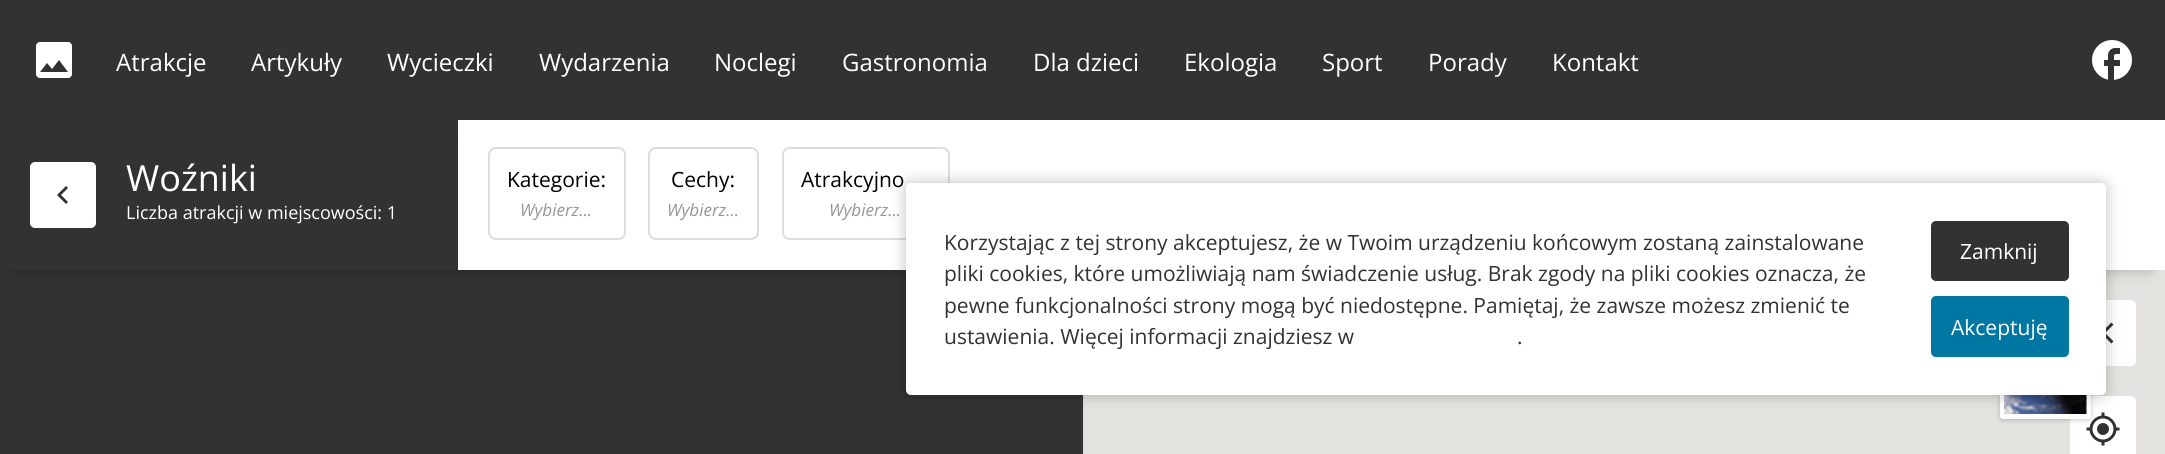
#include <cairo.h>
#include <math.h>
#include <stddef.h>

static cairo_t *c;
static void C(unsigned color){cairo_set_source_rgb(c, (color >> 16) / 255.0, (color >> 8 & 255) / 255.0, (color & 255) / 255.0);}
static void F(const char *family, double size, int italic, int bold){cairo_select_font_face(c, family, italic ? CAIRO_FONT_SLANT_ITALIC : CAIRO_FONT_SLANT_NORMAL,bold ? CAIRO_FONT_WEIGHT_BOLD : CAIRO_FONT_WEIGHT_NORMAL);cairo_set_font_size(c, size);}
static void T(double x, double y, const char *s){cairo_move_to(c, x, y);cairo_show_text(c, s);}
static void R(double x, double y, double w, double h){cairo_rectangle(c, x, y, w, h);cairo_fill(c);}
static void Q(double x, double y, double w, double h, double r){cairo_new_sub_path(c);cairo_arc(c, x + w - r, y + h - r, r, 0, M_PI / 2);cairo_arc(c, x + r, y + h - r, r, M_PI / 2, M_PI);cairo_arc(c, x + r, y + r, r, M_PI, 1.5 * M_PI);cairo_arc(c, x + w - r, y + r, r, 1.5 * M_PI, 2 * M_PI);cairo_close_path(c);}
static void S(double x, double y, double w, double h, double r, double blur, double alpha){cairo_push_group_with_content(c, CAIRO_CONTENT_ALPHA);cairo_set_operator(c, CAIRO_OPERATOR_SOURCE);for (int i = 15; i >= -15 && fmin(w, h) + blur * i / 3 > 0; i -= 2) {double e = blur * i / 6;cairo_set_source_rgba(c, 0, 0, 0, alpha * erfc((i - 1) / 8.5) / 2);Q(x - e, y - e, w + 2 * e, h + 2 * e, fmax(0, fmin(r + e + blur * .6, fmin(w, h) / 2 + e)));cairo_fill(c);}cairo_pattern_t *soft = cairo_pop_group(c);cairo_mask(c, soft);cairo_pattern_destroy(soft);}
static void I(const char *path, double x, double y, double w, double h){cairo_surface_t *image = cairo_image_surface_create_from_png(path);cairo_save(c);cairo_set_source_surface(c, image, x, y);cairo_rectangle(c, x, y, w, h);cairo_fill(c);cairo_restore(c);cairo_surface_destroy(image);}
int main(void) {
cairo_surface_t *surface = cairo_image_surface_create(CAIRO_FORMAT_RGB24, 2165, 454);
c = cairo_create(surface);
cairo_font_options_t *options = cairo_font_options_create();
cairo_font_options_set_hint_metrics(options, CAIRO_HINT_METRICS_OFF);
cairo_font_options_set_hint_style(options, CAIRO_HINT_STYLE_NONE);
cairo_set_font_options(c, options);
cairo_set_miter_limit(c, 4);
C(0x323232);
cairo_paint(c);
I("1.png",36,42,36,36);
F("Open Sans",24,0,0);
C(0xffffff);
T(116,71,"Atrakcje");
T(251,71,"Artykuły");
T(387,71,"Wycieczki");
T(539,71,"Wydarzenia");
T(714,71,"Noclegi");
T(842,71,"Gastronomia");
T(1033,71,"Dla dzieci");
T(1184,71,"Ekologia");
T(1322,71,"Sport");
T(1428,71,"Porady");
T(1552,71,"Kontakt");
I("2.png",2092,40,40,40);
C(0xe5e3df);
R(1085,270,1080,184);
C(0x000000);
S(15,150,2136,120,0,7.5,.25);
C(0xffffff);
R(458,120,1707,150);
C(0x323232);
R(9,144,449,126);
C(0xffffff);
Q(31,163,64,64,4);
cairo_fill_preserve(c);
cairo_stroke(c);
C(0x323232);
cairo_new_path(c);
cairo_move_to(c,68,188);
cairo_line_to(c,61,195);
cairo_line_to(c,68,202);
cairo_line_to(c,66,204);
cairo_line_to(c,57,195);
cairo_line_to(c,66,186);
cairo_close_path(c);
cairo_fill(c);
F("Open Sans",36,0,0);
C(0xffffff);
T(126,191,"Woźniki");
F("Open Sans",18,0,0);
T(126,219,"Liczba atrakcji w miejscowości: 1");
Q(489,148,136,91,7);
C(0xdddddd);
cairo_stroke(c);
F("Open Sans",21,0,0);
C(0x000000);
T(507,187,"Kategorie:");
F("Open Sans",17,1,0);
C(0x969696);
T(520,216,"Wybierz...");
Q(649,148,109,91,7);
C(0xdddddd);
cairo_stroke(c);
F("Open Sans",21,0,0);
C(0x000000);
T(671,187,"Cechy:");
F("Open Sans",17,1,0);
C(0x969696);
T(667,216,"Wybierz...");
Q(783,148,166,91,7);
C(0xdddddd);
cairo_stroke(c);
F("Open Sans",21,0,0);
C(0x000000);
T(801,187,"Atrakcyjno");
F("Open Sans",17,1,0);
C(0x969696);
T(829,216,"Wybierz...");
C(0xdddddd);
R(1083,395,2,59);
C(0xffffff);
Q(2071,301,64,64,4);
cairo_fill_preserve(c);
cairo_stroke(c);
Q(2071,397,64,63,4);
cairo_fill_preserve(c);
cairo_stroke(c);
I("5.png",2086,412,34,34);
C(0x000000);
S(2001,330,89,89,1.5,3,.3);
Q(2002.5,329.5,86,87,.5);
C(0xffffff);
cairo_set_line_width(c,5);
cairo_stroke(c);
I("3.png",2004,395,83,19);
I("4.png",2106,322,8,22);
C(0x000000);
S(906,183,1200,212,5,7.5,.25);
C(0xffffff);
Q(906,183,1200,212,5);
cairo_fill(c);
F("Open Sans",21,0,0);
C(0x323232);
T(944,250,"Korzystając z tej strony akceptujesz, że w Twoim urządzeniu końcowym zostaną zainstalowane");
T(944,281,"pliki cookies, które umożliwiają nam świadczenie usług. Brak zgody na pliki cookies oznacza, że");
T(944,313,"pewne funkcjonalności strony mogą być niedostępne. Pamiętaj, że zawsze możesz zmienić te");
T(944,344,"ustawienia. Więcej informacji znajdziesz w");
T(1517,344,".");
Q(1931,221,138,60,5);
cairo_fill(c);
C(0xffffff);
T(1960,259,"Zamknij");
C(0x0076a3);
Q(1931,296,138,61,5);
cairo_fill(c);
C(0xffffff);
T(1951,335,"Akceptuję");
cairo_surface_write_to_png(surface, "o.png");
cairo_font_options_destroy(options);
cairo_destroy(c);
cairo_surface_destroy(surface);
return 0;
}
